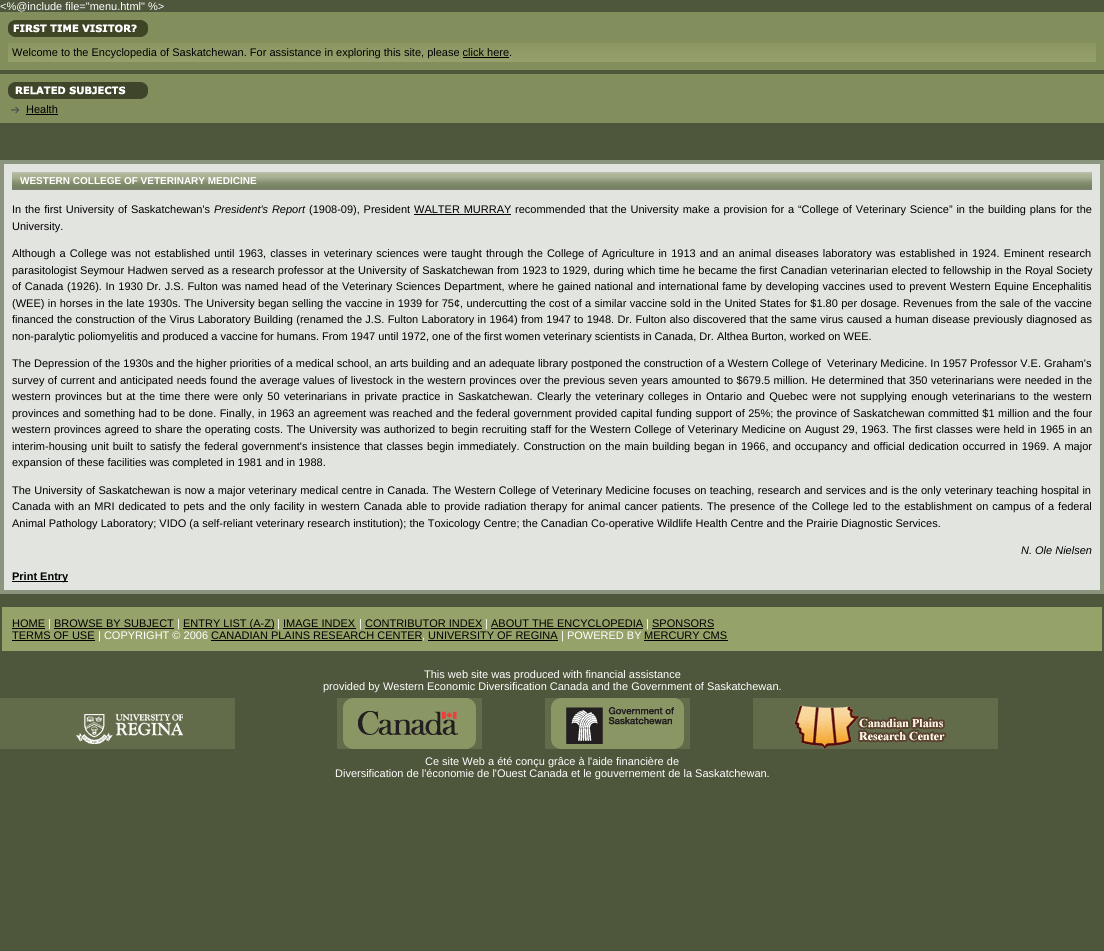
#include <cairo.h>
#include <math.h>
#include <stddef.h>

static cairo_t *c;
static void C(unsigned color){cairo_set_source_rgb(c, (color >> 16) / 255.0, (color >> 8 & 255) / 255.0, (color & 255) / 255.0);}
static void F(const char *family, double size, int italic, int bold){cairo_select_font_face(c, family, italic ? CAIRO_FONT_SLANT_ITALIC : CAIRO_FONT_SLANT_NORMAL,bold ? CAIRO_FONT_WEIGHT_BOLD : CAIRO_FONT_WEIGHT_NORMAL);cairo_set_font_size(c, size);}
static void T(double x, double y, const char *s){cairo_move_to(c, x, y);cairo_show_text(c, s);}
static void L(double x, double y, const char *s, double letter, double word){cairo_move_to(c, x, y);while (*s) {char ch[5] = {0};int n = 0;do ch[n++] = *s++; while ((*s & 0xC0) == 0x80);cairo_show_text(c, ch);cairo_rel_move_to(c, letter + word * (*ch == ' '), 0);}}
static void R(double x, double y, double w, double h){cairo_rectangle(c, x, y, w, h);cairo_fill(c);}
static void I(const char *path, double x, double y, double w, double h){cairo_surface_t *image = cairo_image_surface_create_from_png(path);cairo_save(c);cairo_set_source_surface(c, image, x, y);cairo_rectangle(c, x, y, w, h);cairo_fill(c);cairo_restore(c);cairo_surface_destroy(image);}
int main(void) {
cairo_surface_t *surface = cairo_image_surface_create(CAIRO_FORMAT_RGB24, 1104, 951);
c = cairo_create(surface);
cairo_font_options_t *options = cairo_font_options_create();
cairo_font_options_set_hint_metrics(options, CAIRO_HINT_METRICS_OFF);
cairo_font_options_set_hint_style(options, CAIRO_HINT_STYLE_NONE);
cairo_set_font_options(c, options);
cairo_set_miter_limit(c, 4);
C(0x4e563c);
cairo_paint(c);
F("Liberation Sans",11,0,0);
C(0xffffff);
T(0,10,"<%@include file=\"menu.html\" %>");
C(0x838e5d);
R(0,12,1104,58);
I("1.png",8,20,140,17);
I("2.png",8,43,1088,19);
C(0x000000);
T(12,56,"Welcome to the Encyclopedia of Saskatchewan. For assistance in exploring this site, please click here.");
R(463,57,46,1);
C(0x838e5d);
R(0,74,1104,49);
I("3.png",8,82,140,17);
I("4.png",11,107,8,6);
C(0x000000);
T(26,113,"Health");
R(26,114,32,1);
C(0x8b947f);
R(0,160,1104,434);
C(0xe2e4df);
R(4,164,1096,426);
I("5.png",12,172,1080,18);
F("Liberation Sans",10,0,1);
C(0xffffff);
T(20,184,"WESTERN COLLEGE OF VETERINARY MEDICINE");
F("Liberation Sans",11,0,0);
C(0x000000);
L(12,213,"In the first University of Saskatchewan's",0,.8);
F("Liberation Sans",11,1,0);
L(214,213,"President's Report",0,.8);
F("Liberation Sans",11,0,0);
L(309,213,"(1908-09), President",0,.8);
L(414,213,"WALTER MURRAY",0,.8);
R(414,214,97,1);
L(515,213,"recommended that the University make a provision for a “College of Veterinary Science” in the building plans for the",0,.8);
T(12,230,"University.");
L(12,257,"Although a College was not established until 1963, classes in veterinary sciences were taught through the College of Agriculture in 1913 and an animal diseases laboratory was established in 1924. Eminent research",0,1.1);
L(12,274,"parasitologist Seymour Hadwen served as a research professor at the University of Saskatchewan from 1923 to 1929, during which time he became the first Canadian veterinarian elected to fellowship in the Royal Society",0,.25);
L(12,290,"of Canada (1926). In 1930 Dr. J.S. Fulton was named head of the Veterinary Sciences Department, where he gained national and international fame by developing vaccines used to prevent Western Equine Encephalitis",0,.6);
L(12,307,"(WEE) in horses in the late 1930s. The University began selling the vaccine in 1939 for 75¢, undercutting the cost of a similar vaccine sold in the United States for $1.80 per dosage. Revenues from the sale of the vaccine",0,.3);
L(12,323,"financed the construction of the Virus Laboratory Building (renamed the J.S. Fulton Laboratory in 1964) from 1947 to 1948. Dr. Fulton also discovered that the same virus caused a human disease previously diagnosed as",0,.3);
T(12,340,"non-paralytic poliomyelitis and produced a vaccine for humans. From 1947 until 1972, one of the first women veterinary scientists in Canada, Dr. Althea Burton, worked on WEE.");
T(12,367,"The Depression of the 1930s and the higher priorities of a medical school, an arts building and an adequate library postponed the construction of a Western College of");
T(827,367,"Veterinary Medicine. In 1957 Professor V.E. Graham's");
L(12,384,"survey of current and anticipated needs found the average values of livestock in the western provinces over the previous seven years amounted to $679.5 million. He determined that 350 veterinarians were needed in the",0,.4);
L(12,400,"western provinces but at the time there were only 50 veterinarians in private practice in Saskatchewan. Clearly the veterinary colleges in Ontario and Quebec were not supplying enough veterinarians to the western",0,1.4);
L(12,417,"provinces and something had to be done. Finally, in 1963 an agreement was reached and the federal government provided capital funding support of 25%; the province of Saskatchewan committed $1 million and the four",0,.4);
L(12,433,"western provinces agreed to share the operating costs. The University was authorized to begin recruiting staff for the Western College of Veterinary Medicine on August 29, 1963. The first classes were held in 1965 in an",0,.45);
L(12,450,"interim-housing unit built to satisfy the federal government's insistence that classes begin immediately. Construction on the main building began in 1966, and occupancy and official dedication occurred in 1969. A major",0,.85);
T(12,466,"expansion of these facilities was completed in 1981 and in 1988.");
L(12,494,"The University of Saskatchewan is now a major veterinary medical centre in Canada. The Western College of Veterinary Medicine focuses on teaching, research and services and is the only veterinary teaching hospital in",0,.3);
L(12,510,"Canada with an MRI dedicated to pets and the only facility in western Canada able to provide radiation therapy for animal cancer patients. The presence of the College led to the establishment on campus of a federal",0,.95);
T(12,527,"Animal Pathology Laboratory; VIDO (a self-reliant veterinary research institution); the Toxicology Centre; the Canadian Co-operative Wildlife Health Centre and the Prairie Diagnostic Services.");
F("Liberation Sans",11,1,0);
T(1021,554,"N. Ole Nielsen");
R(12,581,56,1);
F("Liberation Sans",11,0,1);
T(12,580,"Print Entry");
C(0x95a269);
R(2,607,1100,44);
F("Liberation Sans",11,0,0);
C(0x000000);
T(12,627,"HOME");
R(12,628,33,1);
C(0xffffff);
T(48,627,"|");
C(0x000000);
T(54,627,"BROWSE BY SUBJECT");
R(54,628,120,1);
C(0xffffff);
T(177,627,"|");
C(0x000000);
R(183,628,91,1);
T(183,627,"ENTRY LIST (A-Z)");
C(0xffffff);
T(277,627,"|");
C(0x000000);
T(283,627,"IMAGE INDEX");
R(283,628,73,1);
C(0xffffff);
T(359,627,"|");
C(0x000000);
T(365,627,"CONTRIBUTOR INDEX");
R(365,628,117,1);
C(0xffffff);
T(485,627,"|");
C(0x000000);
T(491,627,"ABOUT THE ENCYCLOPEDIA");
R(491,628,152,1);
C(0xffffff);
T(646,627,"|");
C(0x000000);
T(652,627,"SPONSORS");
R(652,628,62,1);
T(12,639,"TERMS OF USE");
R(12,640,83,1);
C(0xffffff);
T(98,639,"| COPYRIGHT © 2006");
C(0x000000);
T(211,639,"CANADIAN PLAINS RESEARCH CENTER");
R(211,640,211,1);
C(0xffffff);
T(422,639,",");
C(0x000000);
T(428,639,"UNIVERSITY OF REGINA");
R(428,640,130,1);
C(0xffffff);
T(561,639,"| POWERED BY");
C(0x000000);
T(644,639,"MERCURY CMS");
R(644,640,84,1);
C(0xffffff);
T(424,678,"This web site was produced with financial assistance");
T(323,690,"provided by Western Economic Diversification Canada and the Government of Saskatchewan.");
I("6.png",0,698,235,51);
I("7.png",337,698,145,51);
I("8.png",545,698,145,51);
I("9.png",753,698,245,51);
T(425,765,"Ce site Web a été conçu grâce à l'aide financière de");
T(335,777,"Diversification de l'économie de l'Ouest Canada et le gouvernement de la Saskatchewan.");
cairo_surface_write_to_png(surface, "o.png");
cairo_font_options_destroy(options);
cairo_destroy(c);
cairo_surface_destroy(surface);
return 0;
}
